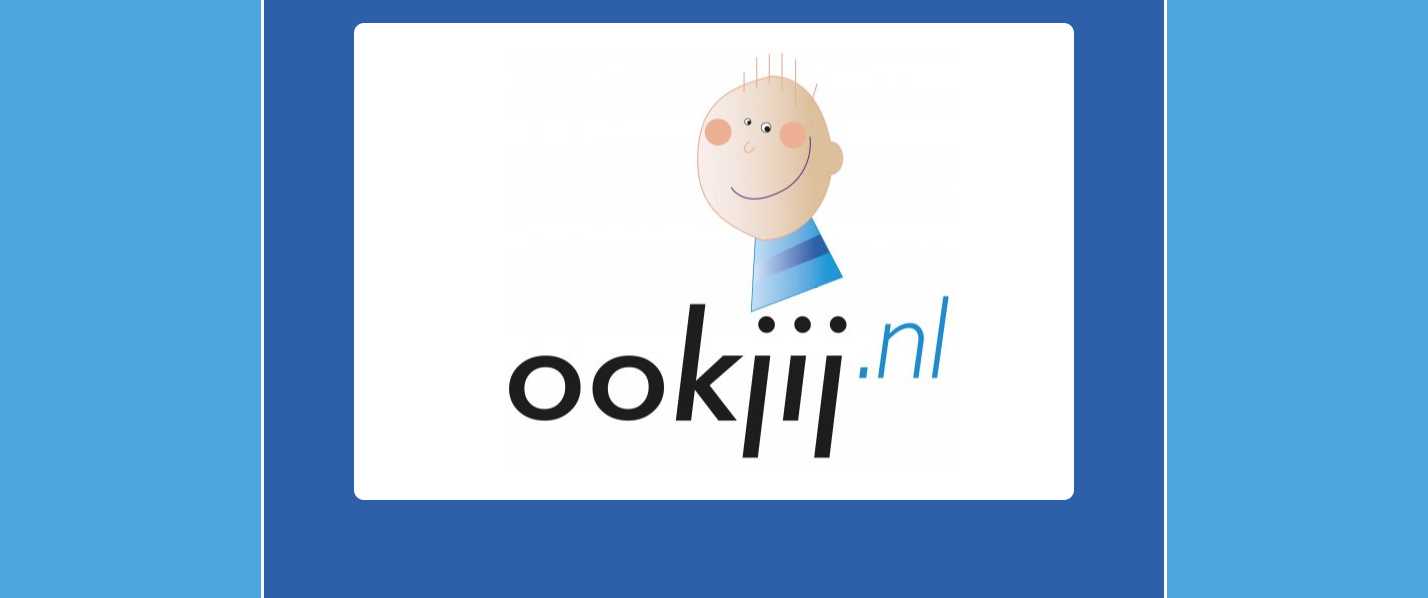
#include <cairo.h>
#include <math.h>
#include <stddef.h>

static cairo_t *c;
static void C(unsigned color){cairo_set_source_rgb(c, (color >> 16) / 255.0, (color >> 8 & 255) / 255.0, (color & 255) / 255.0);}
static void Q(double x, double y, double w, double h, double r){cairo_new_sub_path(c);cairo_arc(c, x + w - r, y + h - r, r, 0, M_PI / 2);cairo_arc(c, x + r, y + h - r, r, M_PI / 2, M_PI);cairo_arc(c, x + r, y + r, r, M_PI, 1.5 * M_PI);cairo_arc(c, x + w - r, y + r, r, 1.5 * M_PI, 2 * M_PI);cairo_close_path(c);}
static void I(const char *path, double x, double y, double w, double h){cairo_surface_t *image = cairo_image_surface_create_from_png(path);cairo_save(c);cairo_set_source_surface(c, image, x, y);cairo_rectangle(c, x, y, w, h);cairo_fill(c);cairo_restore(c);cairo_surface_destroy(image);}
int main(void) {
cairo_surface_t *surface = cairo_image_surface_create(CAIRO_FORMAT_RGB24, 1428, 598);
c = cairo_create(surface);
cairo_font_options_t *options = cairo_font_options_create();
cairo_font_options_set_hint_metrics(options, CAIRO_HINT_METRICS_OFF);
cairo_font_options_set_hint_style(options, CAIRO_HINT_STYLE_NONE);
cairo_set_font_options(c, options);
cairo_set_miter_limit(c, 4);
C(0x4da6de);
cairo_paint(c);
C(0x2e60a9);
cairo_rectangle(c,262.5,-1.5,903,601);
cairo_fill_preserve(c);
C(0xffffff);
cairo_set_line_width(c,3);
cairo_stroke(c);
Q(354,23,720,477,10);
cairo_fill(c);
I("1.png",506,48,448,417);
cairo_surface_write_to_png(surface, "o.png");
cairo_font_options_destroy(options);
cairo_destroy(c);
cairo_surface_destroy(surface);
return 0;
}
